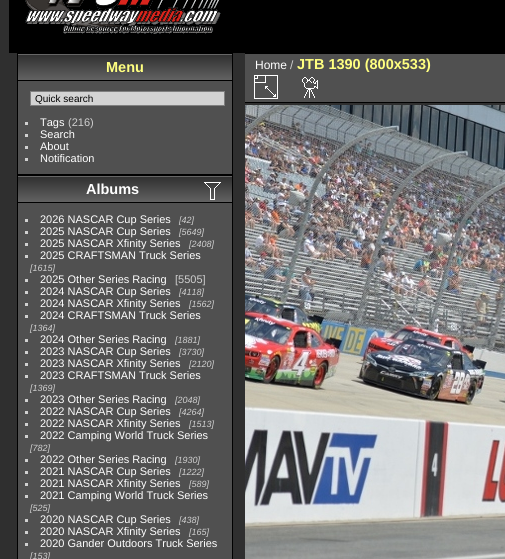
#include <cairo.h>
#include <math.h>
#include <stddef.h>

static cairo_t *c;
static void C(unsigned color){cairo_set_source_rgb(c, (color >> 16) / 255.0, (color >> 8 & 255) / 255.0, (color & 255) / 255.0);}
static void F(const char *family, double size, int italic, int bold){cairo_select_font_face(c, family, italic ? CAIRO_FONT_SLANT_ITALIC : CAIRO_FONT_SLANT_NORMAL,bold ? CAIRO_FONT_WEIGHT_BOLD : CAIRO_FONT_WEIGHT_NORMAL);cairo_set_font_size(c, size);}
static void T(double x, double y, const char *s){cairo_move_to(c, x, y);cairo_show_text(c, s);}
static void R(double x, double y, double w, double h){cairo_rectangle(c, x, y, w, h);cairo_fill(c);}
static void I(const char *path, double x, double y, double w, double h){cairo_surface_t *image = cairo_image_surface_create_from_png(path);cairo_save(c);cairo_set_source_surface(c, image, x, y);cairo_rectangle(c, x, y, w, h);cairo_fill(c);cairo_restore(c);cairo_surface_destroy(image);}
int main(void) {
cairo_surface_t *surface = cairo_image_surface_create(CAIRO_FORMAT_RGB24, 505, 559);
c = cairo_create(surface);
cairo_font_options_t *options = cairo_font_options_create();
cairo_font_options_set_hint_metrics(options, CAIRO_HINT_METRICS_OFF);
cairo_font_options_set_hint_style(options, CAIRO_HINT_STYLE_NONE);
cairo_set_font_options(c, options);
cairo_set_miter_limit(c, 4);
C(0x2f2f2f);
cairo_paint(c);
C(0x000000);
R(9,0,496,53);
I("1.png",25,0,196,34);
C(0x505050);
R(18,81,214,93);
cairo_rectangle(c,17.5,53.5,215,121);
C(0x000000);
cairo_set_line_width(c,1);
cairo_stroke(c);
I("2.png",18,54,214,26);
R(18,80,214,1);
F("Liberation Sans",14.5,0,1);
C(0xffff80);
T(106,72,"Menu");
C(0xd3d3d3);
cairo_rectangle(c,30.5,91.5,194,14);
cairo_fill_preserve(c);
C(0x808080);
cairo_stroke(c);
F("Liberation Sans",10,0,0);
C(0x000000);
T(35,102,"Quick search");
C(0xd0d0d0);
R(25,122,3,3);
F("Liberation Sans",11,0,0);
C(0xffffff);
T(40,126,"Tags");
C(0xd0d0d0);
T(68,126,"(216)");
R(25,134,3,3);
C(0xffffff);
T(40,138,"Search");
C(0xd0d0d0);
R(25,146,3,3);
C(0xffffff);
T(40,150,"About");
C(0xd0d0d0);
R(25,158,3,3);
C(0xffffff);
T(40,162,"Notification");
C(0x505050);
R(18,203,214,356);
cairo_rectangle(c,17.5,175.5,215,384);
C(0x000000);
cairo_stroke(c);
I("2.png",18,176,214,26);
R(18,202,214,1);
F("Liberation Sans",14.5,0,1);
C(0xffffff);
T(86,194,"Albums");
I("3.png",204,182,17,18);
C(0xd0d0d0);
R(25,219,3,3);
F("Liberation Sans",11,0,0);
C(0xffffff);
T(40,223,"2026 NASCAR Cup Series");
F("Liberation Sans",9,1,0);
C(0xd0d0d0);
T(179,223,"[42]");
R(25,231,3,3);
F("Liberation Sans",11,0,0);
C(0xffffff);
T(40,235,"2025 NASCAR Cup Series");
F("Liberation Sans",9,1,0);
C(0xd0d0d0);
T(179,235,"[5649]");
R(25,243,3,3);
F("Liberation Sans",11,0,0);
C(0xffffff);
T(40,247,"2025 NASCAR Xfinity Series");
F("Liberation Sans",9,1,0);
C(0xd0d0d0);
T(189,247,"[2408]");
R(25,255,3,3);
F("Liberation Sans",11,0,0);
C(0xffffff);
T(40,259,"2025 CRAFTSMAN Truck Series");
F("Liberation Sans",9,1,0);
C(0xd0d0d0);
T(30,271,"[1615]");
R(25,279,3,3);
F("Liberation Sans",11,0,0);
C(0xffffff);
T(40,283,"2025 Other Series Racing");
C(0xd0d0d0);
T(175,283,"[5505]");
R(25,291,3,3);
C(0xffffff);
T(40,295,"2024 NASCAR Cup Series");
F("Liberation Sans",9,1,0);
C(0xd0d0d0);
T(179,295,"[4118]");
R(25,303,3,3);
F("Liberation Sans",11,0,0);
C(0xffffff);
T(40,307,"2024 NASCAR Xfinity Series");
F("Liberation Sans",9,1,0);
C(0xd0d0d0);
T(189,307,"[1562]");
R(25,315,3,3);
F("Liberation Sans",11,0,0);
C(0xffffff);
T(40,319,"2024 CRAFTSMAN Truck Series");
F("Liberation Sans",9,1,0);
C(0xd0d0d0);
T(30,331,"[1364]");
R(25,339,3,3);
F("Liberation Sans",11,0,0);
C(0xffffff);
T(40,343,"2024 Other Series Racing");
F("Liberation Sans",9,1,0);
C(0xd0d0d0);
T(175,343,"[1881]");
R(25,351,3,3);
F("Liberation Sans",11,0,0);
C(0xffffff);
T(40,355,"2023 NASCAR Cup Series");
F("Liberation Sans",9,1,0);
C(0xd0d0d0);
T(179,355,"[3730]");
R(25,363,3,3);
F("Liberation Sans",11,0,0);
C(0xffffff);
T(40,367,"2023 NASCAR Xfinity Series");
F("Liberation Sans",9,1,0);
C(0xd0d0d0);
T(189,367,"[2120]");
R(25,375,3,3);
F("Liberation Sans",11,0,0);
C(0xffffff);
T(40,379,"2023 CRAFTSMAN Truck Series");
F("Liberation Sans",9,1,0);
C(0xd0d0d0);
T(30,391,"[1369]");
R(25,399,3,3);
F("Liberation Sans",11,0,0);
C(0xffffff);
T(40,403,"2023 Other Series Racing");
F("Liberation Sans",9,1,0);
C(0xd0d0d0);
T(175,403,"[2048]");
R(25,411,3,3);
F("Liberation Sans",11,0,0);
C(0xffffff);
T(40,415,"2022 NASCAR Cup Series");
F("Liberation Sans",9,1,0);
C(0xd0d0d0);
T(179,415,"[4264]");
R(25,423,3,3);
F("Liberation Sans",11,0,0);
C(0xffffff);
T(40,427,"2022 NASCAR Xfinity Series");
F("Liberation Sans",9,1,0);
C(0xd0d0d0);
T(189,427,"[1513]");
R(25,435,3,3);
F("Liberation Sans",11,0,0);
C(0xffffff);
T(40,439,"2022 Camping World Truck Series");
F("Liberation Sans",9,1,0);
C(0xd0d0d0);
T(30,451,"[782]");
R(25,459,3,3);
F("Liberation Sans",11,0,0);
C(0xffffff);
T(40,463,"2022 Other Series Racing");
F("Liberation Sans",9,1,0);
C(0xd0d0d0);
T(175,463,"[1930]");
R(25,471,3,3);
F("Liberation Sans",11,0,0);
C(0xffffff);
T(40,475,"2021 NASCAR Cup Series");
F("Liberation Sans",9,1,0);
C(0xd0d0d0);
T(179,475,"[1222]");
R(25,483,3,3);
F("Liberation Sans",11,0,0);
C(0xffffff);
T(40,487,"2021 NASCAR Xfinity Series");
F("Liberation Sans",9,1,0);
C(0xd0d0d0);
T(189,487,"[589]");
R(25,495,3,3);
F("Liberation Sans",11,0,0);
C(0xffffff);
T(40,499,"2021 Camping World Truck Series");
F("Liberation Sans",9,1,0);
C(0xd0d0d0);
T(30,511,"[525]");
R(25,519,3,3);
F("Liberation Sans",11,0,0);
C(0xffffff);
T(40,523,"2020 NASCAR Cup Series");
F("Liberation Sans",9,1,0);
C(0xd0d0d0);
T(179,523,"[438]");
R(25,531,3,3);
F("Liberation Sans",11,0,0);
C(0xffffff);
T(40,535,"2020 NASCAR Xfinity Series");
F("Liberation Sans",9,1,0);
C(0xd0d0d0);
T(189,535,"[165]");
R(25,543,3,3);
F("Liberation Sans",11,0,0);
C(0xffffff);
T(40,547,"2020 Gander Outdoors Truck Series");
F("Liberation Sans",9,1,0);
C(0xd0d0d0);
T(30,559,"[153]");
C(0x505050);
R(245,54,260,48);
C(0x000000);
R(245,102,260,1);
I("4.png",254,75,24,24);
I("5.png",302,77,16,21);
R(245,53,260,1);
F("Liberation Sans",12,0,0);
C(0xffffff);
T(255,69,"Home");
C(0xd0d0d0);
T(290,69,"/");
F("Liberation Sans",14.5,0,1);
C(0xffff80);
T(297,69,"JTB 1390 (800x533)");
I("6.png",245,105,260,454);
cairo_surface_write_to_png(surface, "o.png");
cairo_font_options_destroy(options);
cairo_destroy(c);
cairo_surface_destroy(surface);
return 0;
}
